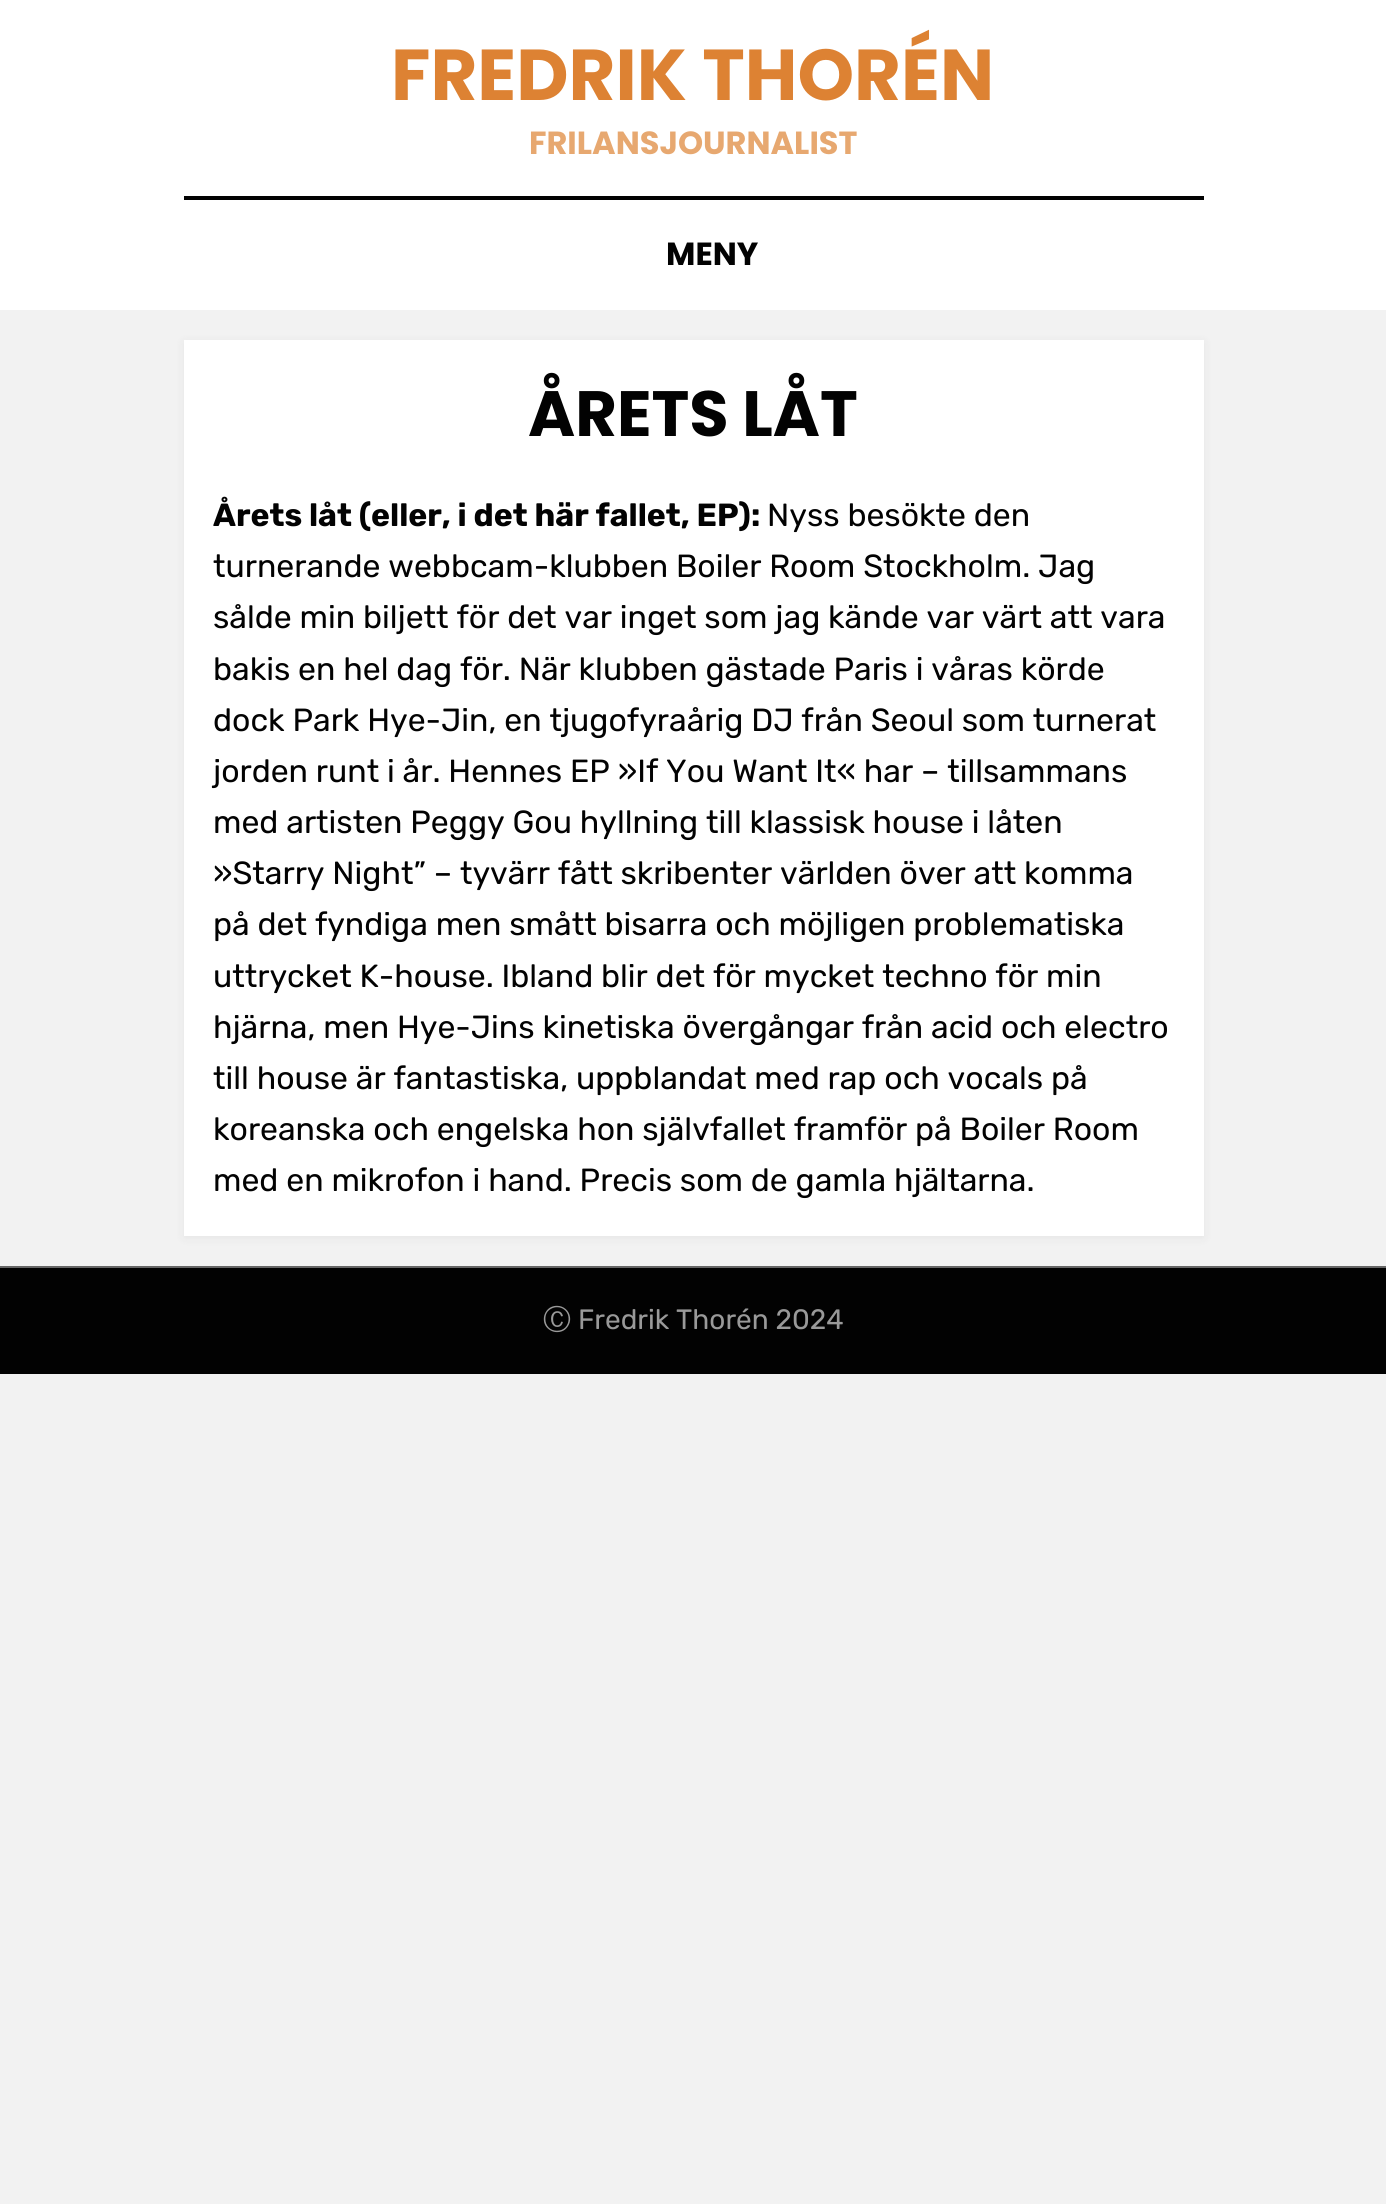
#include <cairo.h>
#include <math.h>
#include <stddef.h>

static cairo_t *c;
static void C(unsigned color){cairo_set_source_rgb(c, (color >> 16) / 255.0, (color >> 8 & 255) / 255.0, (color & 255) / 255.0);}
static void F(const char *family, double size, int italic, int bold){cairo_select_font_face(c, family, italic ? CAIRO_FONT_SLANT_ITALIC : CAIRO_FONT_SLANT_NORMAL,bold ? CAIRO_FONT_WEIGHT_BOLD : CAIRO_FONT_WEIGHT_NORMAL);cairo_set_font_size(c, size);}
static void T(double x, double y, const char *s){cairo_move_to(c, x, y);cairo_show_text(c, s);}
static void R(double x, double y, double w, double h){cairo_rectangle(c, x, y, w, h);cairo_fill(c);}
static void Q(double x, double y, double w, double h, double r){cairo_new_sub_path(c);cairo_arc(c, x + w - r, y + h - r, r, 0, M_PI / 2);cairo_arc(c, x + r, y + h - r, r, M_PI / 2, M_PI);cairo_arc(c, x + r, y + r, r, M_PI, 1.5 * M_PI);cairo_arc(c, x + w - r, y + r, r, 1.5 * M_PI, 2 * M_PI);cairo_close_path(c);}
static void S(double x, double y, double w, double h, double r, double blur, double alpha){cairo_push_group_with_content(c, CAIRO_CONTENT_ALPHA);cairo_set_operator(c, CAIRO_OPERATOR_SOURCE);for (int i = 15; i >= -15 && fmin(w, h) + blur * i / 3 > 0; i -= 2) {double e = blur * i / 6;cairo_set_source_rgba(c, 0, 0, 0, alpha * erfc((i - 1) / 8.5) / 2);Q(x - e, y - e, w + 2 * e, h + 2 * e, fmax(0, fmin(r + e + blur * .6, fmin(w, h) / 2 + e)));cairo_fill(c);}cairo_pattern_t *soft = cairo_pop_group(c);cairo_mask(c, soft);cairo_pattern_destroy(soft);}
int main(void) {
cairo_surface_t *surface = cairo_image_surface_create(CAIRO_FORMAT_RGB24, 1386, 2204);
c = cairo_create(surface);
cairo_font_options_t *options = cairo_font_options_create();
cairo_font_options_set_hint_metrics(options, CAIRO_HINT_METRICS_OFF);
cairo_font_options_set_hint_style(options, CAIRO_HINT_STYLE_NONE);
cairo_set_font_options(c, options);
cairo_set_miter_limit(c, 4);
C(0xf2f2f2);
cairo_paint(c);
C(0xffffff);
R(0,0,1386,310);
F("Poppins",72,0,1);
C(0xdd8233);
T(391,100,"FREDRIK THORÉN");
F("Poppins",32,0,1);
C(0xe7a870);
T(529,154,"FRILANSJOURNALIST");
C(0x020202);
R(184,196,1020,4);
T(666,265,"MENY");
C(0x000001);
S(184,342,1020,896,0,5,.05);
C(0xffffff);
R(184,340,1020,896);
F("Poppins",64,0,1);
C(0x020202);
T(528,436,"ÅRETS LÅT");
F("Rubik",32,0,1);
T(213,526,"Årets låt (eller, i det här fallet, EP):");
F("Rubik",32,0,0);
T(767,526,"Nyss besökte den");
T(213,577,"turnerande webbcam-klubben Boiler Room Stockholm. Jag");
T(213,628,"sålde min biljett för det var inget som jag kände var värt att vara");
T(213,680,"bakis en hel dag för. När klubben gästade Paris i våras körde");
T(213,731,"dock Park Hye-Jin, en tjugofyraårig DJ från Seoul som turnerat");
T(213,782,"jorden runt i år. Hennes EP »If You Want It« har – tillsammans");
T(213,833,"med artisten Peggy Gou hyllning till klassisk house i låten");
T(213,884,"»Starry Night” – tyvärr fått skribenter världen över att komma");
T(213,935,"på det fyndiga men smått bisarra och möjligen problematiska");
T(213,987,"uttrycket K-house. Ibland blir det för mycket techno för min");
T(213,1038,"hjärna, men Hye-Jins kinetiska övergångar från acid och electro");
T(213,1089,"till house är fantastiska, uppblandat med rap och vocals på");
T(213,1140,"koreanska och engelska hon självfallet framför på Boiler Room");
T(213,1191,"med en mikrofon i hand. Precis som de gamla hjältarna.");
R(0,1268,1386,106);
C(0x666666);
R(0,1266,1386,2);
F("WenQuanYi Zen Hei Medium",28,0,0);
C(0x999999);
T(543,1329,"Ⓒ");
F("Rubik",28,0,0);
T(578,1329,"Fredrik Thorén 2024");
cairo_surface_write_to_png(surface, "o.png");
cairo_font_options_destroy(options);
cairo_destroy(c);
cairo_surface_destroy(surface);
return 0;
}
